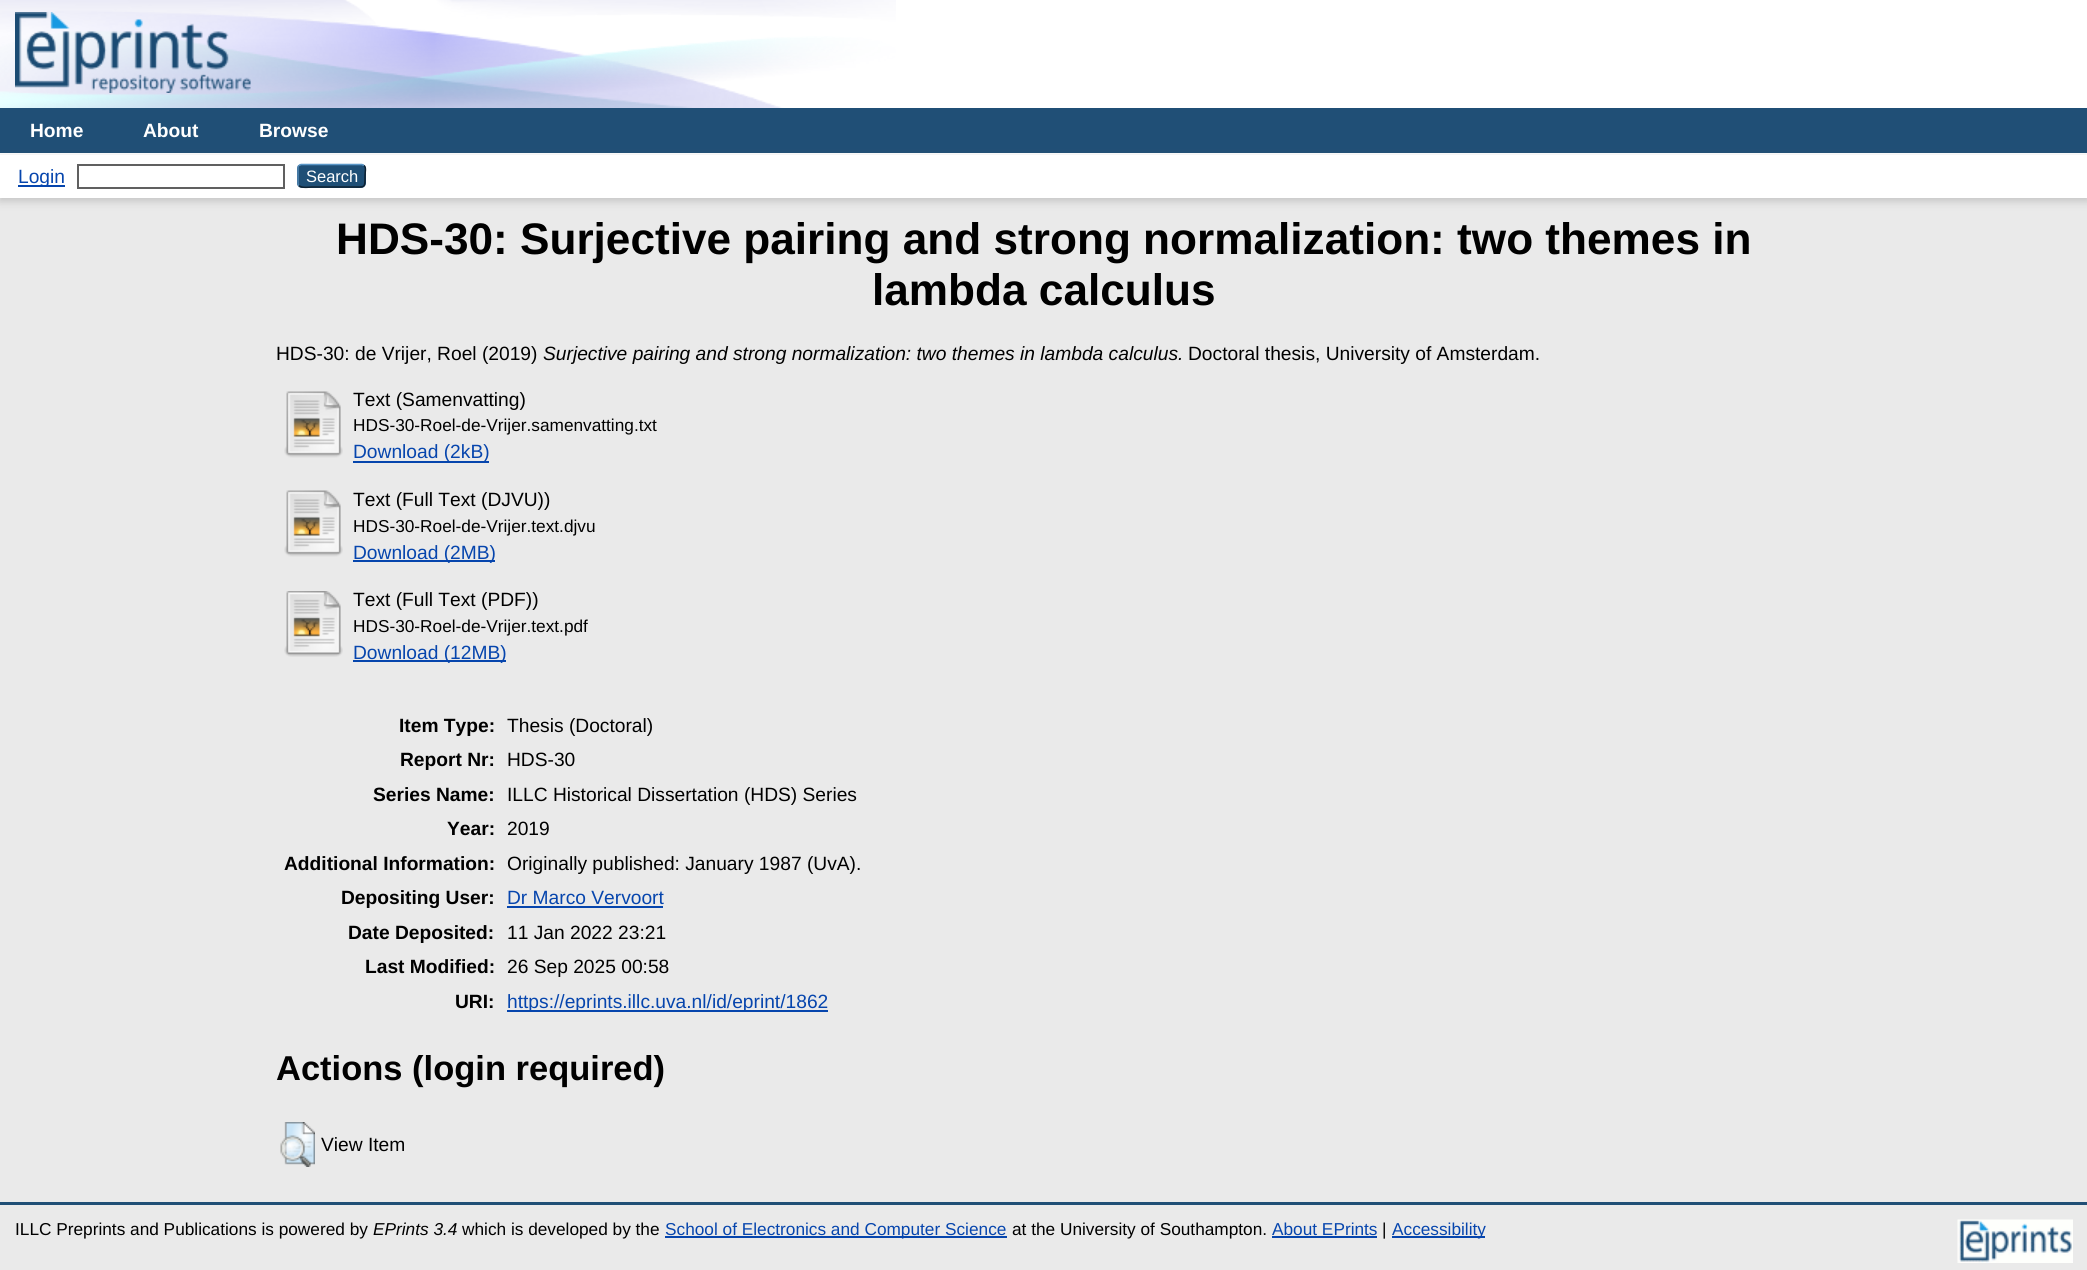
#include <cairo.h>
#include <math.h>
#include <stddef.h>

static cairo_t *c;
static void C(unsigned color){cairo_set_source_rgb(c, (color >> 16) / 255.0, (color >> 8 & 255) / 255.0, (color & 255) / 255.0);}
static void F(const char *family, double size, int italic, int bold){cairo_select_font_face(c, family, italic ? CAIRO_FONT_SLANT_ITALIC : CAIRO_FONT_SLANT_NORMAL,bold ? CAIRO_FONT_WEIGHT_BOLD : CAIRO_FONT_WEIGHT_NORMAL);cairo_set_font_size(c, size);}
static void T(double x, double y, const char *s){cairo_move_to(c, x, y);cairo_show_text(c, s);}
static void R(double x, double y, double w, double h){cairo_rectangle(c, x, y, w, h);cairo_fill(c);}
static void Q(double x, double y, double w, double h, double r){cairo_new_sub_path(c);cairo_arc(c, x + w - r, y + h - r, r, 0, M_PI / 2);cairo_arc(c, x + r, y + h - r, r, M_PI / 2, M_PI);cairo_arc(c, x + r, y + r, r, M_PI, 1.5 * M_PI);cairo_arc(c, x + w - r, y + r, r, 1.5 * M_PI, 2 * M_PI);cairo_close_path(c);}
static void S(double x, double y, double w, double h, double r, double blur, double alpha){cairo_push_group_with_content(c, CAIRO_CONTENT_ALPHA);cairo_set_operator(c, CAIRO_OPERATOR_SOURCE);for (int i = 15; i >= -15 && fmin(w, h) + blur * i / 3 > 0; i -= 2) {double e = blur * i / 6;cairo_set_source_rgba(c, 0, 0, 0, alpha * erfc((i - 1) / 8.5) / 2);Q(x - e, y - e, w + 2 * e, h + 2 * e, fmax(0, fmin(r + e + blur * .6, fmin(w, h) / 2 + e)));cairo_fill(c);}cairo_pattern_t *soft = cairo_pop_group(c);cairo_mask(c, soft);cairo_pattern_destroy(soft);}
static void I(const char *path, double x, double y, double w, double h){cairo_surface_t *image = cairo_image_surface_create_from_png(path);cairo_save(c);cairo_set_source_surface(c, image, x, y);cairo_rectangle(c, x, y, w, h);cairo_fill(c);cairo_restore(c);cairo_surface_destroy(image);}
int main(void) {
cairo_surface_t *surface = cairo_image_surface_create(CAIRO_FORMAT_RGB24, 2087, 1270);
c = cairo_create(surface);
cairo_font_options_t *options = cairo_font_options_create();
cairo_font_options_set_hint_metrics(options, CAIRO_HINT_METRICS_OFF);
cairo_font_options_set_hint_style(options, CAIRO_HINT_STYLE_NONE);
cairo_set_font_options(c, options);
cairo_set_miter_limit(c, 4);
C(0xeaeaea);
cairo_paint(c);
C(0xffffff);
R(0,0,2087,108);
I("1.png",0,0,896,108);
I("2.png",15,12,236,81);
C(0x204f76);
R(0,108,2087,45);
C(0xffffff);
R(0,153,2087,2);
F("Liberation Sans",19.2,0,1);
T(30,137,"Home");
T(143,137,"About");
T(259,137,"Browse");
C(0x646464);
S(0,158,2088,43,0,4.5,.3);
C(0xffffff);
R(0,155,2087,43);
C(0x0645ad);
R(18,185,47,2);
F("Liberation Sans",19.2,0,0);
T(18,183,"Login");
cairo_rectangle(c,78,165,206,23);
C(0x606060);
cairo_stroke(c);
C(0x1f4f76);
Q(297,164,69,24,5);
cairo_fill(c);
cairo_new_path(c);
cairo_move_to(c,299,165.5);
cairo_line_to(c,301,164.5);
cairo_line_to(c,362,164.5);
cairo_line_to(c,364,165.5);
C(0x5b97c7);
cairo_set_line_width(c,1.5);
cairo_stroke(c);
cairo_new_path(c);
cairo_move_to(c,364,165.5);
cairo_curve_to(c,366.5,167.5,365,172.5,365,175.5);
cairo_curve_to(c,365,188.5,365.5,187,351.5,187);
cairo_line_to(c,311.5,187);
cairo_curve_to(c,311,187,301.5,188.5,299,185.5);
C(0x0d2131);
cairo_stroke(c);
cairo_new_path(c);
cairo_move_to(c,299,185.5);
cairo_curve_to(c,298,185,298,184,298,183);
cairo_line_to(c,298,168);
cairo_curve_to(c,298,167,298,166,299,165.5);
C(0x5287b3);
cairo_stroke(c);
F("Liberation Sans",16.5,0,0);
C(0xffffff);
T(306,182,"Search");
F("Liberation Sans",44.15,0,1);
C(0x000000);
T(336,254,"HDS-30: Surjective pairing and strong normalization: two themes in");
T(872,305,"lambda calculus");
F("Liberation Sans",19.2,0,0);
T(276,360,"HDS-30: de Vrijer, Roel (2019)");
F("Liberation Sans",19.2,1,0);
T(543,360,"Surjective pairing and strong normalization: two themes in lambda calculus.");
F("Liberation Sans",19.2,0,0);
T(1188,360,"Doctoral thesis, University of Amsterdam.");
I("3.png",284,391,59,67);
T(353,406,"Text (Samenvatting)");
F("Liberation Sans",17.25,0,0);
T(353,431,"HDS-30-Roel-de-Vrijer.samenvatting.txt");
C(0x0645ad);
R(353,461,136,2);
F("Liberation Sans",19.2,0,0);
T(353,458,"Download (2kB)");
I("3.png",284,490,59,67);
C(0x000000);
T(353,506,"Text (Full Text (DJVU))");
F("Liberation Sans",17.25,0,0);
T(353,532,"HDS-30-Roel-de-Vrijer.text.djvu");
C(0x0645ad);
R(353,560,142,2);
F("Liberation Sans",19.2,0,0);
T(353,559,"Download (2MB)");
I("4.png",284,591,59,66);
C(0x000000);
T(353,606,"Text (Full Text (PDF))");
F("Liberation Sans",17.25,0,0);
T(353,632,"HDS-30-Roel-de-Vrijer.text.pdf");
C(0x0645ad);
R(353,660,153,2);
F("Liberation Sans",19.2,0,0);
T(353,659,"Download (12MB)");
F("Liberation Sans",19.2,0,1);
C(0x000000);
T(399,732,"Item Type:");
F("Liberation Sans",19.2,0,0);
T(507,732,"Thesis (Doctoral)");
F("Liberation Sans",19.2,0,1);
T(400,766,"Report Nr:");
F("Liberation Sans",19.2,0,0);
T(507,766,"HDS-30");
F("Liberation Sans",19.2,0,1);
T(373,801,"Series Name:");
F("Liberation Sans",19.2,0,0);
T(507,801,"ILLC Historical Dissertation (HDS) Series");
F("Liberation Sans",19.2,0,1);
T(447,835,"Year:");
F("Liberation Sans",19.2,0,0);
T(507,835,"2019");
F("Liberation Sans",19.2,0,1);
T(284,870,"Additional Information:");
F("Liberation Sans",19.2,0,0);
T(507,870,"Originally published: January 1987 (UvA).");
F("Liberation Sans",19.2,0,1);
T(341,904,"Depositing User:");
F("Liberation Sans",19.2,0,0);
C(0x0645ad);
T(507,904,"Dr Marco Vervoort");
R(507,906,156,2);
F("Liberation Sans",19.2,0,1);
C(0x000000);
T(348,939,"Date Deposited:");
F("Liberation Sans",19.2,0,0);
T(507,939,"11 Jan 2022 23:21");
F("Liberation Sans",19.2,0,1);
T(365,973,"Last Modified:");
F("Liberation Sans",19.2,0,0);
T(507,973,"26 Sep 2025 00:58");
F("Liberation Sans",19.2,0,1);
T(455,1008,"URI:");
C(0x0645ad);
R(507,1010,321,2);
F("Liberation Sans",19.2,0,0);
T(507,1008,"https://eprints.illc.uva.nl/id/eprint/1862");
F("Liberation Sans",34.5,0,1);
C(0x000000);
T(276,1080,"Actions (login required)");
I("5.png",280,1122,35,45);
F("Liberation Sans",19.2,0,0);
T(321,1151,"View Item");
C(0x204f76);
R(0,1202,2087,3);
F("Liberation Sans",17.25,0,0);
C(0x000000);
T(15,1235,"ILLC Preprints and Publications is powered by");
F("Liberation Sans",17.25,1,0);
T(373,1235,"EPrints 3.4");
F("Liberation Sans",17.25,0,0);
T(462,1235,"which is developed by the");
C(0x0645ad);
R(665,1236,342,2);
T(665,1235,"School of Electronics and Computer Science");
C(0x000000);
T(1012,1235,"at the University of Southampton.");
C(0x0645ad);
T(1272,1235,"About EPrints");
R(1272,1236,105,2);
C(0x000000);
T(1382,1235,"|");
C(0x0645ad);
R(1392,1236,93,2);
T(1392,1235,"Accessibility");
I("6.png",1957,1219,116,44);
cairo_surface_write_to_png(surface, "o.png");
cairo_font_options_destroy(options);
cairo_destroy(c);
cairo_surface_destroy(surface);
return 0;
}
